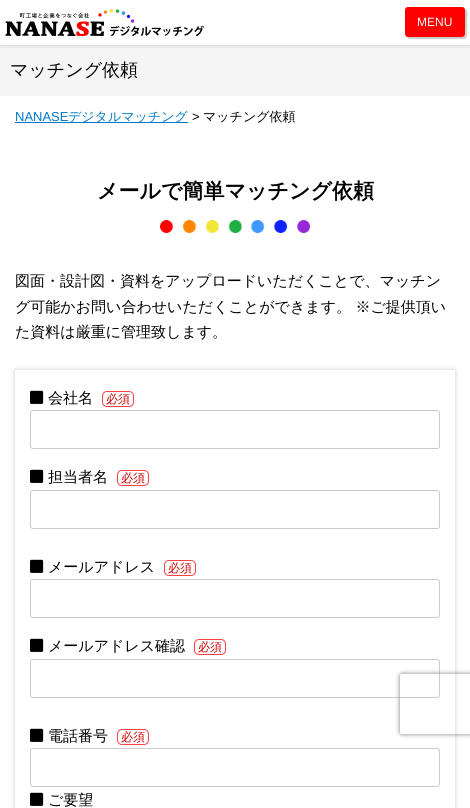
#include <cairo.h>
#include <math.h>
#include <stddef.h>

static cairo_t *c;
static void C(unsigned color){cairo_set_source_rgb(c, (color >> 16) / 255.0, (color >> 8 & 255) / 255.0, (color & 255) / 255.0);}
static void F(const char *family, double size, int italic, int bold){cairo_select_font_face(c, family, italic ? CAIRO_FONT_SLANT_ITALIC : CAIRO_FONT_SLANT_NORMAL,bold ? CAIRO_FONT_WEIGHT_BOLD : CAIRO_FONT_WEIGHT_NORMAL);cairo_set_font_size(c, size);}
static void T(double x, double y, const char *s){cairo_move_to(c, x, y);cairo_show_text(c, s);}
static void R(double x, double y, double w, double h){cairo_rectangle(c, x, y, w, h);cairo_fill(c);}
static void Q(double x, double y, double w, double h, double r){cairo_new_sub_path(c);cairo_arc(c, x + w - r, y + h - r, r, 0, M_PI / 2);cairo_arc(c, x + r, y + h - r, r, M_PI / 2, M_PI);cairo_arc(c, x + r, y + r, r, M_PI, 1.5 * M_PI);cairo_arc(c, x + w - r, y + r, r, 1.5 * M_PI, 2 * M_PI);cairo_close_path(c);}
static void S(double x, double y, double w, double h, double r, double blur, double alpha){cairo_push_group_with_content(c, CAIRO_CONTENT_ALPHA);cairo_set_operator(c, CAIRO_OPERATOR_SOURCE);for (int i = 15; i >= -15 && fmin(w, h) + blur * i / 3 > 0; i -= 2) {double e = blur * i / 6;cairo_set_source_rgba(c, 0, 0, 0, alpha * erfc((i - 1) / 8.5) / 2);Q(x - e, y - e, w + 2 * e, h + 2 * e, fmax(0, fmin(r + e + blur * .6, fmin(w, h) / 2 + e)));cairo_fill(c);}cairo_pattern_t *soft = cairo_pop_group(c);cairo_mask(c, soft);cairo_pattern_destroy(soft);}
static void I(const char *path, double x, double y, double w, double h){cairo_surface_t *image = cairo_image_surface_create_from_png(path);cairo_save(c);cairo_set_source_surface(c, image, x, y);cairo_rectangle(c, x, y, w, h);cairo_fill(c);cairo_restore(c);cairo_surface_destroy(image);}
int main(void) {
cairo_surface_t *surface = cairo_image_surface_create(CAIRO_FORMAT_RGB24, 470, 808);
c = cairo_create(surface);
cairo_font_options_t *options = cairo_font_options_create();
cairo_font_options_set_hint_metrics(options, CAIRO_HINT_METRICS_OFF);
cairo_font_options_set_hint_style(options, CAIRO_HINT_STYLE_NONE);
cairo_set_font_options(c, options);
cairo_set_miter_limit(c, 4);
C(0xffffff);
cairo_paint(c);
C(0xf5f5f5);
R(0,45,470,51);
cairo_save(c);
cairo_rectangle(c,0,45,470,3);
cairo_clip(c);
C(0x000000);
S(0,0,470,45,0,2.5,.2);
cairo_restore(c);
I("1.png",5,9,200,27);
C(0xcccccc);
cairo_new_path(c);
cairo_move_to(c,407,37);
cairo_line_to(c,409,39);
cairo_line_to(c,464,39);
cairo_line_to(c,466,38);
cairo_curve_to(c,468,36,467,23,467,20);
cairo_curve_to(c,467,18,469,10,465,9);
cairo_line_to(c,465,26);
cairo_curve_to(c,465,28,467,37,462,37);
cairo_close_path(c);
cairo_fill(c);
C(0xff0000);
Q(405,7,60,30,3);
cairo_fill(c);
F("Liberation Sans",12,0,0);
C(0xffffff);
T(417,26,"MENU");
F("WenQuanYi Zen Hei Medium",18,0,0);
C(0x000000);
T(10,76,"マッチング依頼");
F("Liberation Sans",13,0,0);
C(0x0078c9);
T(15,121,"NANASE");
R(15,122,173,1);
F("WenQuanYi Zen Hei Medium",13,0,0);
T(68,121,"デジタルマッチング");
F("Liberation Sans",13,0,0);
C(0x000000);
T(192,121,">");
F("WenQuanYi Zen Hei Medium",13,0,0);
T(203,121,"マッチング依頼");
F("WenQuanYi Zen Hei",21,0,1);
T(97,198,"メールで簡単マッチング依頼");
I("2.png",160,220,150,13);
F("WenQuanYi Zen Hei Medium",15,0,0);
T(15,286,"図面・設計図・資料をアップロードいただくことで、マッチン");
T(15,312,"グ可能かお問い合わせいただくことができます。 ※ご提供頂い");
T(15,337,"た資料は厳重に管理致します。");
cairo_save(c);
cairo_set_fill_rule(c,CAIRO_FILL_RULE_EVEN_ODD);
cairo_new_path(c);
cairo_move_to(c,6,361);
cairo_line_to(c,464,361);
cairo_line_to(c,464,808);
cairo_line_to(c,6,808);
cairo_close_path(c);
cairo_move_to(c,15,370);
cairo_line_to(c,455,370);
cairo_line_to(c,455,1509);
cairo_line_to(c,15,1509);
cairo_close_path(c);
cairo_clip(c);
C(0x000000);
S(15,370,440,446,0,2.5,.2);
cairo_restore(c);
I("3.png",30,390,14,14);
T(48,403,"会社名");
Q(102.5,391.5,31,15,4.5);
C(0xfb4343);
cairo_set_line_width(c,1);
cairo_stroke(c);
F("WenQuanYi Zen Hei Medium",12,0,0);
C(0xcc0000);
T(106,403,"必須");
Q(30.5,410.5,409,38,2.5);
C(0xcccccc);
cairo_stroke(c);
I("3.png",30,469,14,14);
F("WenQuanYi Zen Hei Medium",15,0,0);
C(0x000000);
T(48,482,"担当者名");
Q(117.5,470.5,31,15,4.5);
C(0xfb4343);
cairo_stroke(c);
F("WenQuanYi Zen Hei Medium",12,0,0);
C(0xcc0000);
T(121,482,"必須");
Q(30.5,490.5,409,38,2.5);
C(0xcccccc);
cairo_stroke(c);
I("3.png",30,559,14,14);
F("WenQuanYi Zen Hei Medium",15,0,0);
C(0x000000);
T(48,572,"メールアドレス");
Q(164.5,560.5,31,15,4.5);
C(0xfb4343);
cairo_stroke(c);
F("WenQuanYi Zen Hei Medium",12,0,0);
C(0xcc0000);
T(168,572,"必須");
Q(30.5,579.5,409,38,2.5);
C(0xcccccc);
cairo_stroke(c);
I("3.png",30,638,14,14);
F("WenQuanYi Zen Hei Medium",15,0,0);
C(0x000000);
T(48,651,"メールアドレス確認");
Q(194.5,639.5,31,15,4.5);
C(0xfb4343);
cairo_stroke(c);
F("WenQuanYi Zen Hei Medium",12,0,0);
C(0xcc0000);
T(198,651,"必須");
Q(30.5,659.5,409,38,2.5);
C(0xcccccc);
cairo_stroke(c);
I("3.png",30,728,14,14);
F("WenQuanYi Zen Hei Medium",15,0,0);
C(0x000000);
T(48,741,"電話番号");
Q(117.5,729.5,31,15,4.5);
C(0xfb4343);
cairo_stroke(c);
F("WenQuanYi Zen Hei Medium",12,0,0);
C(0xcc0000);
T(121,741,"必須");
Q(30.5,748.5,409,38,2.5);
C(0xcccccc);
cairo_stroke(c);
I("3.png",30,792,14,14);
F("WenQuanYi Zen Hei Medium",15,0,0);
C(0x000000);
T(48,805,"ご要望");
cairo_save(c);
cairo_set_fill_rule(c,CAIRO_FILL_RULE_EVEN_ODD);
cairo_new_path(c);
cairo_move_to(c,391,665);
cairo_line_to(c,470,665);
cairo_line_to(c,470,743);
cairo_line_to(c,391,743);
cairo_close_path(c);
cairo_move_to(c,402,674);
cairo_line_to(c,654,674);
cairo_curve_to(c,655,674,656,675,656,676);
cairo_line_to(c,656,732);
cairo_curve_to(c,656,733,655,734,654,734);
cairo_line_to(c,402,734);
cairo_curve_to(c,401,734,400,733,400,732);
cairo_line_to(c,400,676);
cairo_curve_to(c,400,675,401,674,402,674);
cairo_close_path(c);
cairo_clip(c);
C(0x808080);
S(400,674,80,60,2,2.5,1);
cairo_restore(c);
cairo_surface_write_to_png(surface, "o.png");
cairo_font_options_destroy(options);
cairo_destroy(c);
cairo_surface_destroy(surface);
return 0;
}
